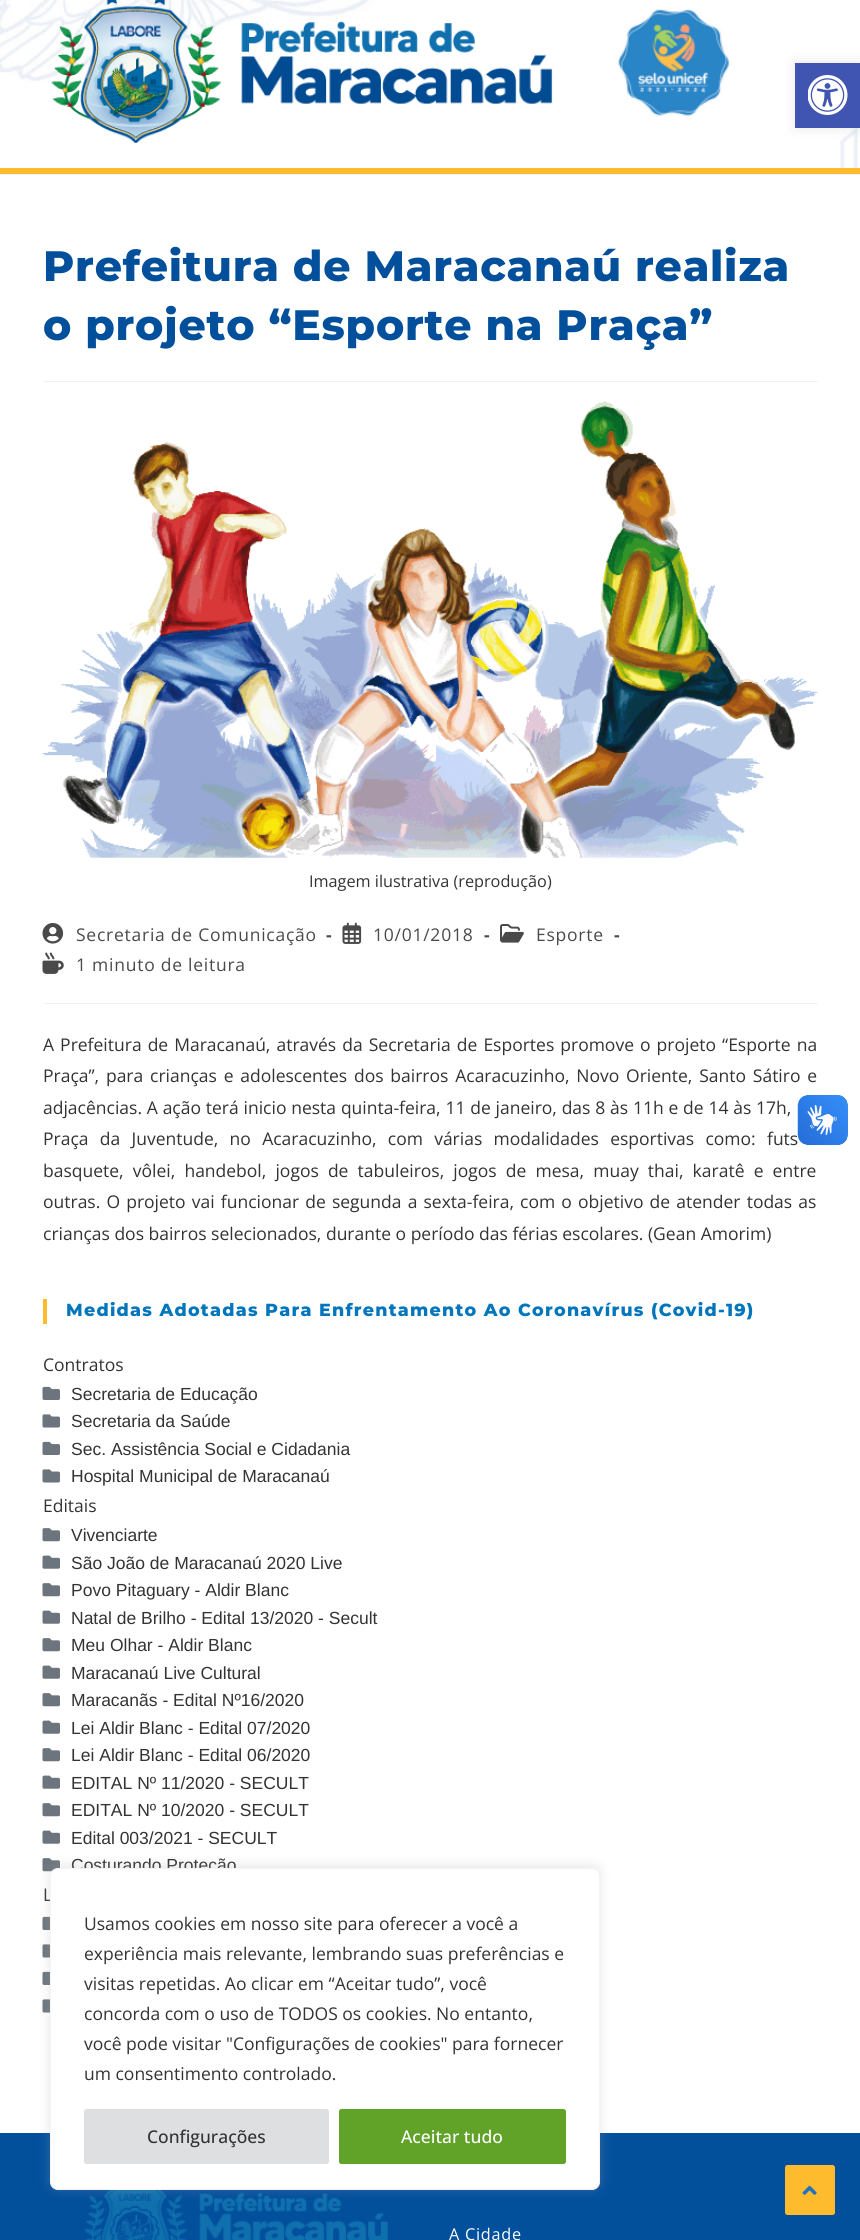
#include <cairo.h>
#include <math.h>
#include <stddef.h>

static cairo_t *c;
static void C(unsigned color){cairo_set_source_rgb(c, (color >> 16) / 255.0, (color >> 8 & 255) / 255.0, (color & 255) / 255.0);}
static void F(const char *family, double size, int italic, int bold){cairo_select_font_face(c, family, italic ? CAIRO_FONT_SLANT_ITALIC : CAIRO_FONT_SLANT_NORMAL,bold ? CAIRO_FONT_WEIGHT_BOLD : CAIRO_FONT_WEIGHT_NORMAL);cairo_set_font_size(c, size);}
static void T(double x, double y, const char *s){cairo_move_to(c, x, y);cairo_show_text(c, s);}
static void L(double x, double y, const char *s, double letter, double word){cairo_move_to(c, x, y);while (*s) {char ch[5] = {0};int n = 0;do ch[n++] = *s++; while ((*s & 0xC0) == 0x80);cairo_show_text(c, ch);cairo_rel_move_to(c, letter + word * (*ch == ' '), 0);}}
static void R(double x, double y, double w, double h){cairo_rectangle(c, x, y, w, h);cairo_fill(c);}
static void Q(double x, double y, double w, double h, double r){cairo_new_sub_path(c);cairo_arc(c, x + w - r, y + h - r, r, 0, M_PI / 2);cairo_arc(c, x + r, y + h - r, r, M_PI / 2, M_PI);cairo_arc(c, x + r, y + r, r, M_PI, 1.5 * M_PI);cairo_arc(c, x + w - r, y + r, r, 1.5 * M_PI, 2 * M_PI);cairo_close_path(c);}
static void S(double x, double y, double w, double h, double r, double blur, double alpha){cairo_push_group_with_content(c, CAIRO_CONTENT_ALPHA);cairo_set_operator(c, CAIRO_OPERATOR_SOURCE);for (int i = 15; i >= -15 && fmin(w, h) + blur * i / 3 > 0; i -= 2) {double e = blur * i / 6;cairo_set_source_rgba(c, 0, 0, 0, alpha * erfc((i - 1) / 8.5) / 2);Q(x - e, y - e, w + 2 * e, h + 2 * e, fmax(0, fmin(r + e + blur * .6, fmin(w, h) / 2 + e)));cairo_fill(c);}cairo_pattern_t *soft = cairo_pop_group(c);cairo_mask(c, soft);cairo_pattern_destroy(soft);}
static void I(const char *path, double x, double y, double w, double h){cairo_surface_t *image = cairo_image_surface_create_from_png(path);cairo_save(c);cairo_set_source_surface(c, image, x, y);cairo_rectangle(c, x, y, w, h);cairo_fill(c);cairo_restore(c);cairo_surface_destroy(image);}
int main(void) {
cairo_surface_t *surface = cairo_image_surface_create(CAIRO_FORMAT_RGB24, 860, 2240);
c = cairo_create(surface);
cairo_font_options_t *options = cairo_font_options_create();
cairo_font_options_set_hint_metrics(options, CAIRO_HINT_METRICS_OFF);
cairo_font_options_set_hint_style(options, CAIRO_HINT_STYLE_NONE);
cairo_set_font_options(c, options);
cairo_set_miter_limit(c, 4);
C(0xffffff);
cairo_paint(c);
I("2.png",0,0,860,168);
C(0x000000);
S(795,63,65,65,0,6,.1);
C(0x4054b2);
R(795,63,65,65);
I("1.png",808,75,40,40);
C(0xf1f1f1);
R(0,174,860,1);
C(0xfdbb2d);
R(0,168,860,6);
I("3.png",51,0,502,143);
I("4.png",618,9,112,108);
C(0xf1f1f1);
R(43,381,775,1);
F("Montserrat ExtraBold",42.5,0,0);
C(0x024f9c);
L(43,281,"Prefeitura de Maracanaú realiza",.75,0);
L(43,340,"o projeto “Esporte na Praça”",.75,0);
I("5.png",42,401,776,457);
F("Open Sans",16.25,0,0);
C(0x333333);
T(309,887,"Imagem ilustrativa (reprodução)");
C(0xf1f1f1);
R(43,1003,775,1);
I("6.png",42,923,22,21);
F("Open Sans",17.5,0,0);
C(0x4a4a4a);
L(76,941,"Secretaria de Comunicação",.75,0);
F("Open Sans",17.5,0,1);
L(326,941,"-",.75,0);
I("7.png",342,922,20,22);
F("Open Sans",17.5,0,0);
L(373,941,"10/01/2018",.75,0);
F("Open Sans",17.5,0,1);
L(484,941,"-",.75,0);
I("8.png",500,924,24,19);
F("Open Sans",17.5,0,0);
L(536,941,"Esporte",.75,0);
F("Open Sans",17.5,0,1);
L(614,941,"-",.75,0);
I("9.png",42,952,22,22);
F("Open Sans",17.5,0,0);
L(76,971,"1 minuto de leitura",.75,0);
C(0x333333);
L(43,1051,"A Prefeitura de Maracanaú, através da Secretaria de Esportes promove o projeto “Esporte na",0,1.5);
L(43,1082,"Praça”, para crianças e adolescentes dos bairros Acaracuzinho, Novo Oriente, Santo Sátiro e",0,2.25);
L(43,1114,"adjacências. A ação terá inicio nesta quinta-feira, 11 de janeiro, das 8 às 11h e de 14 às 17h,",0,.25);
L(43,1145,"Praça da Juventude, no Acaracuzinho, com várias modalidades esportivas como: futs",0,6.75);
L(43,1177,"basquete, vôlei, handebol, jogos de tabuleiros, jogos de mesa, muay thai, karatê e entre",0,4.6);
L(43,1208,"outras. O projeto vai funcionar de segunda a sexta-feira, com o objetivo de atender todas as",0,1.6);
T(43,1240,"crianças dos bairros selecionados, durante o período das férias escolares. (Gean Amorim)");
C(0xfdbb2d);
R(43,1299,4,25);
F("Montserrat ExtraBold",17.5,0,0);
C(0x0176bc);
L(66,1316,"Medidas Adotadas Para Enfrentamento Ao Coronavírus (Covid-19)",1.25,0);
F("Open Sans",17.5,0,0);
C(0x333333);
T(43,1371,"Contratos");
I("10.png",42,1386,18,14);
F("Liberation Sans",17.5,0,0);
T(71,1400,"Secretaria de Educação");
I("11.png",42,1414,18,14);
T(71,1427,"Secretaria da Saúde");
I("10.png",42,1441,18,14);
T(71,1455,"Sec. Assistência Social e Cidadania");
I("11.png",42,1469,18,14);
T(71,1482,"Hospital Municipal de Maracanaú");
F("Open Sans",17.5,0,0);
T(43,1512,"Editais");
I("12.png",42,1528,18,14);
F("Liberation Sans",17.5,0,0);
T(71,1541,"Vivenciarte");
I("13.png",42,1555,18,14);
T(71,1569,"São João de Maracanaú 2020 Live");
I("12.png",42,1583,18,14);
T(71,1596,"Povo Pitaguary - Aldir Blanc");
I("13.png",42,1610,18,14);
T(71,1624,"Natal de Brilho - Edital 13/2020 - Secult");
I("12.png",42,1638,18,14);
T(71,1651,"Meu Olhar - Aldir Blanc");
I("13.png",42,1665,18,14);
T(71,1679,"Maracanaú Live Cultural");
I("12.png",42,1693,18,14);
T(71,1706,"Maracanãs - Edital Nº16/2020");
I("13.png",42,1720,18,14);
T(71,1734,"Lei Aldir Blanc - Edital 07/2020");
I("12.png",42,1748,18,14);
T(71,1761,"Lei Aldir Blanc - Edital 06/2020");
I("13.png",42,1775,18,14);
T(71,1789,"EDITAL Nº 11/2020 - SECULT");
I("12.png",42,1803,18,14);
T(71,1816,"EDITAL Nº 10/2020 - SECULT");
I("13.png",42,1830,18,14);
T(71,1844,"Edital 003/2021 - SECULT");
I("12.png",42,1858,18,14);
T(71,1871,"Costurando Proteção");
F("Open Sans",17.5,0,0);
T(43,1901,"L");
I("14.png",42,1916,8,14);
I("15.png",42,1944,8,14);
I("14.png",42,1971,8,14);
I("15.png",42,1999,8,14);
C(0x024f9c);
R(0,2133,860,107);
I("16.png",84,2190,304,50);
F("Open Sans",16.25,0,0);
C(0xffffff);
L(449,2240,"A Cidade",.75,0);
I("17.png",797,1095,51,50);
I("18.png",798,1095,50,50);
C(0xacabab);
S(50,1866,550,323,8,6,.3);
C(0xffffff);
Q(50.5,1868.5,549,321,7.5);
cairo_fill_preserve(c);
C(0xf4f4f4);
cairo_set_line_width(c,1);
cairo_stroke(c);
F("Open Sans",17.5,0,0);
C(0x333333);
T(84,1930,"Usamos cookies em nosso site para oferecer a você a");
T(84,1960,"experiência mais relevante, lembrando suas preferências e");
T(84,1990,"visitas repetidas. Ao clicar em “Aceitar tudo”, você");
T(84,2020,"concorda com o uso de TODOS os cookies. No entanto,");
T(84,2050,"você pode visitar \"Configurações de cookies\" para fornecer");
T(84,2080,"um consentimento controlado.");
C(0xdedfe0);
Q(85.5,2110.5,242,52,1);
cairo_fill_preserve(c);
cairo_set_line_width(c,3);
cairo_stroke(c);
F("Open Sans Medium",17.5,0,0);
C(0x333333);
T(147,2143,"Configurações");
C(0x61a229);
Q(340.5,2110.5,224,52,1);
cairo_fill_preserve(c);
cairo_stroke(c);
C(0xffffff);
T(401,2143,"Aceitar tudo");
C(0xfdbb2d);
Q(785,2165,50,50,2.5);
cairo_fill(c);
I("19.png",802,2185,15,10);
cairo_surface_write_to_png(surface, "o.png");
cairo_font_options_destroy(options);
cairo_destroy(c);
cairo_surface_destroy(surface);
return 0;
}
